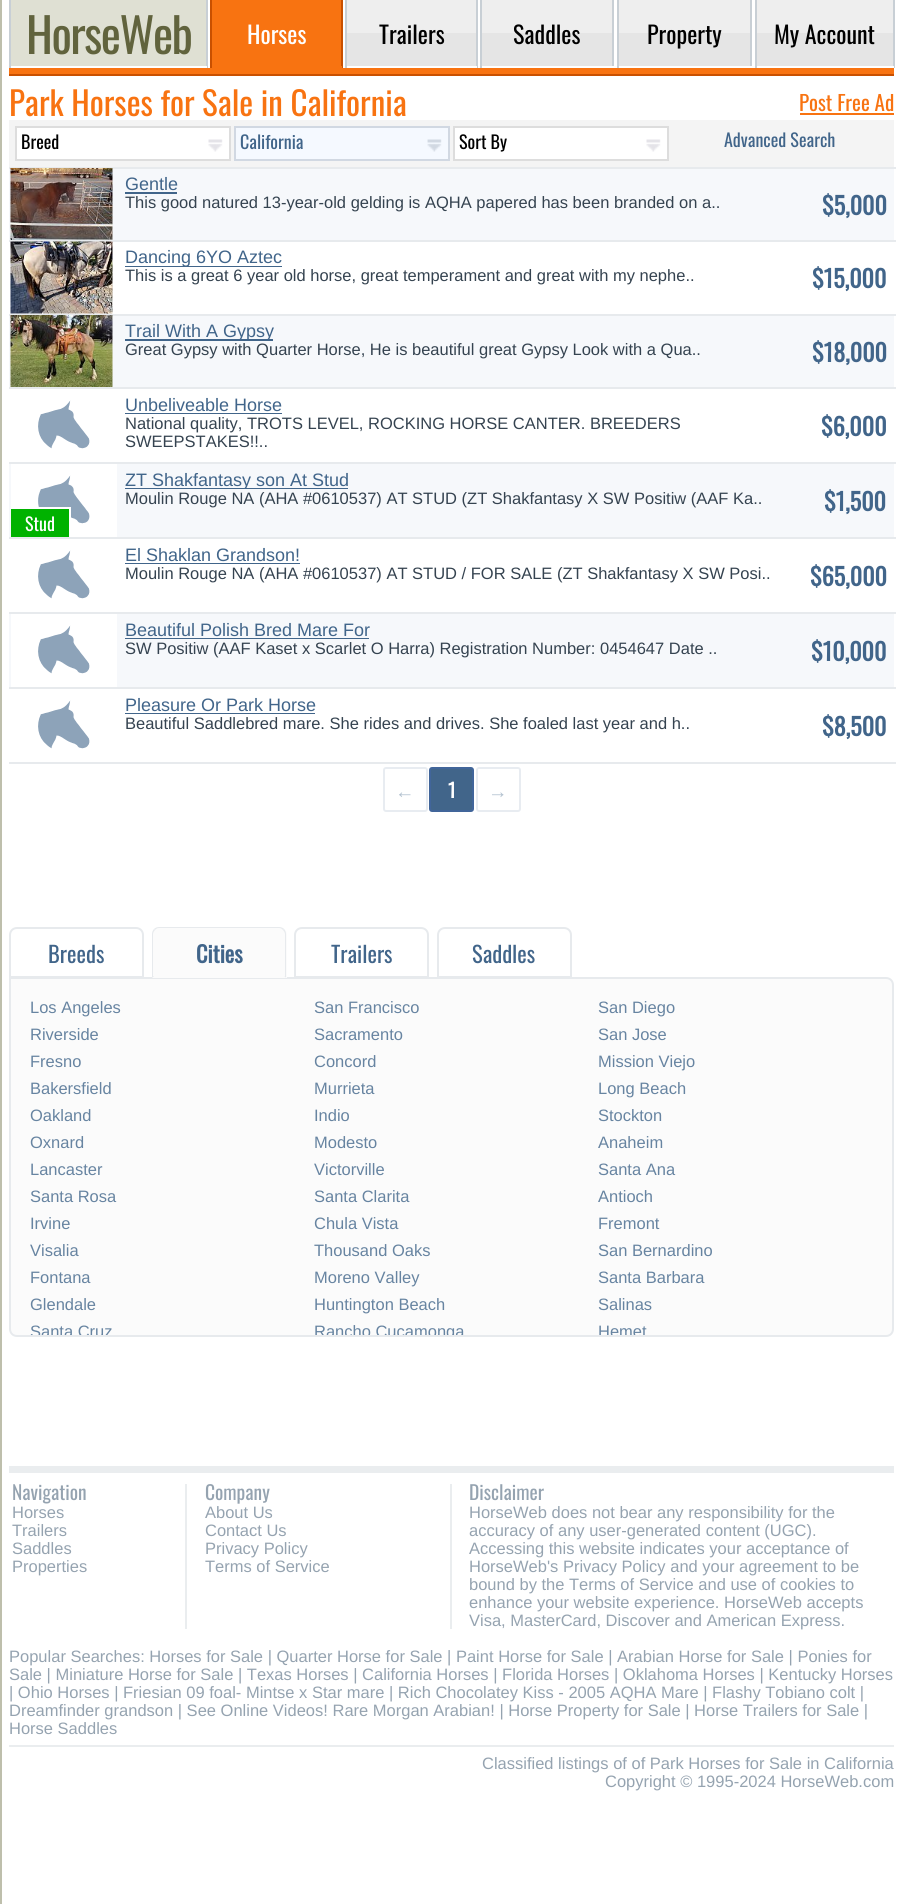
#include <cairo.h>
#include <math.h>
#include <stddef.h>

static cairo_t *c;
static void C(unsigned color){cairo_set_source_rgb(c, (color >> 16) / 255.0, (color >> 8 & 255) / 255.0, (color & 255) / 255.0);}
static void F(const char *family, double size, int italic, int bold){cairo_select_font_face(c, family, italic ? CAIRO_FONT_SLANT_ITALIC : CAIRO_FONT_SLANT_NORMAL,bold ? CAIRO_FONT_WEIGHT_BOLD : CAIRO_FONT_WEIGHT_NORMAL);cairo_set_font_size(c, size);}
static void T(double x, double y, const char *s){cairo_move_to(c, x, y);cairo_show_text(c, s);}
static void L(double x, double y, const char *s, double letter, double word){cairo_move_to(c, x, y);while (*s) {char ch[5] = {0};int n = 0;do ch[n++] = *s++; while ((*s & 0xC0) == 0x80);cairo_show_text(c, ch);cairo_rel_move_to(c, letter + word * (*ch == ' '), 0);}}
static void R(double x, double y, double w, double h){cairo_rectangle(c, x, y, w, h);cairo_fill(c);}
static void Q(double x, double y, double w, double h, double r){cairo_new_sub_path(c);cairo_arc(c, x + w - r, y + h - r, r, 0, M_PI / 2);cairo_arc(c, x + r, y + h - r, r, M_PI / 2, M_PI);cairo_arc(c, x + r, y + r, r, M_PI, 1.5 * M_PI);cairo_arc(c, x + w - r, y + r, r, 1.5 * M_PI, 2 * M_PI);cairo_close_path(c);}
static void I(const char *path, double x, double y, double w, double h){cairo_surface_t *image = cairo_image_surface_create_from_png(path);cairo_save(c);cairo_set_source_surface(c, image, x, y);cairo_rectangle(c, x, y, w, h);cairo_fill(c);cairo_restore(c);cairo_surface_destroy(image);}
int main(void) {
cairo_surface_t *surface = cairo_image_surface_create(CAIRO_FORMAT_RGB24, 902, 1904);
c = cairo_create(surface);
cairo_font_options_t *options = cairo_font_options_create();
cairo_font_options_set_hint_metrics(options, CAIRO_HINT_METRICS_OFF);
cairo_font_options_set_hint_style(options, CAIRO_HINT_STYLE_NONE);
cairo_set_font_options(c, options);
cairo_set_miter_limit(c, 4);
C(0xffffff);
cairo_paint(c);
C(0xbebfac);
R(0,0,2,1904);
C(0xdfe0d3);
R(11,0,195,66);
C(0xc8cfd5);
R(206,0,2,68);
C(0xffffff);
R(206,66,1,2);
C(0xc8cfd5);
R(9,0,2,68);
F("Oswald",48,0,0);
C(0x61633d);
L(26,54,"HorseWeb",-1.5,0);
C(0xf87311);
R(212,0,129,66);
C(0xc95000);
R(341,0,2,68);
C(0xf87311);
R(210,66,132,2);
C(0xc95000);
R(210,0,2,68);
F("Oswald",24,0,0);
C(0xffffff);
T(247,44,"Horses");
C(0xeeeeee);
R(347,0,129,33);
C(0xe5e5e5);
R(347,33,129,33);
C(0xc8cfd5);
R(476,0,2,68);
C(0xffffff);
R(476,66,1,2);
C(0xc8cfd5);
R(345,0,2,68);
C(0x000000);
T(379,44,"Trailers");
C(0xeeeeee);
R(482,0,130,33);
C(0xe5e5e5);
R(482,33,130,33);
C(0xc8cfd5);
R(612,0,2,68);
C(0xffffff);
R(612,66,2,2);
C(0xc8cfd5);
R(480,0,2,68);
C(0x000000);
T(513,44,"Saddles");
C(0xeeeeee);
R(619,0,131,33);
C(0xe5e5e5);
R(619,33,131,33);
C(0xc8cfd5);
R(750,0,2,68);
C(0xffffff);
R(750,66,2,2);
C(0xc8cfd5);
R(617,0,2,68);
C(0x000000);
T(647,44,"Property");
C(0xeeeeee);
R(757,0,136,33);
C(0xe5e5e5);
R(757,33,136,33);
C(0xc8cfd5);
R(893,0,2,68);
C(0xffffff);
R(893,66,1,2);
C(0xc8cfd5);
R(755,0,2,68);
C(0x000000);
T(774,44,"My Account");
C(0xf87311);
R(9,68,885,6);
C(0xc95000);
R(9,74,885,2);
F("Oswald",33,0,0);
C(0xf87311);
T(9,116,"Park Horses for Sale in California");
F("Oswald",21,0,0);
T(799,111,"Post Free Ad");
R(800,113,94,2);
C(0xf4f4f4);
R(9,120,885,47);
C(0xffffff);
R(17,128,212,31);
I("1.png",208,139,15,13);
cairo_rectangle(c,16,127,214,33);
C(0xdddddd);
cairo_stroke(c);
F("Oswald",18,0,0);
C(0x000000);
T(21,149,"Breed");
C(0xf5f9ff);
R(236,128,212,31);
I("2.png",427,139,15,13);
cairo_rectangle(c,235,127,214,33);
C(0xd1d8e2);
cairo_stroke(c);
C(0x41658a);
T(240,149,"California");
C(0xffffff);
R(455,128,212,31);
I("1.png",646,139,15,13);
cairo_rectangle(c,454,127,214,33);
C(0xdddddd);
cairo_stroke(c);
C(0x000000);
T(459,149,"Sort By");
C(0x41658a);
T(724,147,"Advanced Search");
C(0xf6f8fb);
R(9,169,885,71);
C(0xe7eaed);
R(9,167,887,2);
R(9,240,887,2);
I("3.png",10,168,103,72);
F("Liberation Sans",18,0,0);
C(0x41658a);
T(125,190,"Gentle");
R(125,192,52,2);
F("Liberation Sans",16.5,0,0);
C(0x354350);
T(125,208,"This good natured 13-year-old gelding is AQHA papered has been branded on a..");
F("Oswald",24,0,1);
C(0x41658a);
T(822,215,"$5,000");
C(0xe7eaed);
R(9,314,887,2);
I("4.png",10,241,103,73);
C(0x41658a);
R(125,266,157,1);
F("Liberation Sans",18,0,0);
T(125,263,"Dancing 6YO Aztec");
F("Liberation Sans",16.5,0,0);
C(0x354350);
T(125,281,"This is a great 6 year old horse, great temperament and great with my nephe..");
F("Oswald",24,0,1);
C(0x41658a);
T(812,288,"$15,000");
C(0xf6f8fb);
R(9,316,885,71);
C(0xe7eaed);
R(9,387,887,2);
I("5.png",10,315,103,72);
C(0x41658a);
R(125,339,148,2);
F("Liberation Sans",18,0,0);
T(125,337,"Trail With A Gypsy");
F("Liberation Sans",16.5,0,0);
C(0x354350);
T(125,355,"Great Gypsy with Quarter Horse, He is beautiful great Gypsy Look with a Qua..");
F("Oswald",24,0,1);
C(0x41658a);
T(812,362,"$18,000");
C(0xe7eaed);
R(9,462,887,2);
I("6.png",38,400,52,49);
F("Liberation Sans",18,0,0);
C(0x41658a);
T(125,411,"Unbeliveable Horse");
R(125,413,157,1);
F("Liberation Sans",16.5,0,0);
C(0x354350);
T(125,429,"National quality, TROTS LEVEL, ROCKING HORSE CANTER. BREEDERS");
T(125,447,"SWEEPSTAKES!!..");
F("Oswald",24,0,1);
C(0x41658a);
T(821,436,"$6,000");
C(0xf6f8fb);
R(9,464,885,73);
C(0xe7eaed);
R(9,537,887,2);
C(0x41658a);
R(125,488,223,1);
cairo_save(c);
cairo_rectangle(c,125,471,261,18);
cairo_clip(c);
F("Liberation Sans",18,0,0);
T(125,486,"ZT Shakfantasy son At Stud");
cairo_restore(c);
F("Liberation Sans",16.5,0,0);
C(0x354350);
T(125,504,"Moulin Rouge NA (AHA #0610537) AT STUD (ZT Shakfantasy X SW Positiw (AAF Ka..");
F("Oswald",24,0,1);
C(0x41658a);
T(824,511,"$1,500");
C(0xffffff);
R(11,464,106,73);
I("7.png",38,475,52,49);
C(0x00b200);
R(11,509,58,28);
C(0xffffff);
R(38,507,33,2);
R(69,507,2,11);
F("Oswald",18,0,0);
T(25,531,"Stud");
C(0xe7eaed);
R(9,612,887,2);
I("6.png",38,550,52,49);
F("Liberation Sans",18,0,0);
C(0x41658a);
T(125,561,"El Shaklan Grandson!");
R(125,563,175,1);
F("Liberation Sans",16.5,0,0);
C(0x354350);
T(125,579,"Moulin Rouge NA (AHA #0610537) AT STUD / FOR SALE (ZT Shakfantasy X SW Posi..");
F("Oswald",24,0,1);
C(0x41658a);
T(810,586,"$65,000");
C(0xf6f8fb);
R(9,614,885,73);
C(0xe7eaed);
R(9,687,887,2);
C(0xffffff);
R(11,614,106,73);
I("6.png",38,625,52,49);
F("Liberation Sans",18,0,0);
C(0x41658a);
T(125,636,"Beautiful Polish Bred Mare For");
R(125,638,244,1);
F("Liberation Sans",16.5,0,0);
C(0x354350);
T(125,654,"SW Positiw (AAF Kaset x Scarlet O Harra) Registration Number: 0454647 Date ..");
F("Oswald",24,0,1);
C(0x41658a);
T(811,661,"$10,000");
C(0xe7eaed);
R(9,762,887,2);
I("6.png",38,700,52,49);
F("Liberation Sans",18,0,0);
C(0x41658a);
T(125,711,"Pleasure Or Park Horse");
R(125,713,190,1);
F("Liberation Sans",16.5,0,0);
C(0x354350);
T(125,729,"Beautiful Saddlebred mare. She rides and drives. She foaled last year and h..");
F("Oswald",24,0,1);
C(0x41658a);
T(822,736,"$8,500");
Q(384,768,43,43,2);
C(0xe8ecf1);
cairo_stroke(c);
F("Liberation Serif",19.5,0,0);
C(0xb3c2d0);
T(395,798,"←");
C(0x41658a);
Q(430,768,43,43,2);
cairo_fill_preserve(c);
C(0x41659a);
cairo_stroke(c);
F("Oswald",19.5,0,1);
C(0xffffff);
T(448,798,"1");
Q(477,768,43,43,2);
C(0xe8ecf1);
cairo_stroke(c);
F("Liberation Serif",19.5,0,0);
C(0xb3c2d0);
T(488,798,"→");
C(0xfbfbfb);
cairo_new_path(c);
cairo_move_to(c,10,978);
cairo_line_to(c,886,978);
cairo_curve_to(c,890,978,893,981,893,985);
cairo_line_to(c,893,1329);
cairo_curve_to(c,893,1333,890,1336,886,1336);
cairo_line_to(c,17,1336);
cairo_curve_to(c,13,1336,10,1333,10,1329);
cairo_close_path(c);
cairo_fill_preserve(c);
C(0xe7eaed);
cairo_stroke(c);
cairo_new_path(c);
cairo_move_to(c,17,928);
cairo_line_to(c,136,928);
cairo_curve_to(c,140,928,143,931,143,935);
cairo_line_to(c,143,977);
cairo_line_to(c,10,977);
cairo_line_to(c,10,935);
cairo_curve_to(c,10,931,13,928,17,928);
cairo_close_path(c);
cairo_stroke(c);
F("Oswald",22.5,0,0);
C(0x41658a);
T(48,963,"Breeds");
C(0xfbfbfb);
cairo_new_path(c);
cairo_move_to(c,160,927);
cairo_line_to(c,279,927);
cairo_curve_to(c,283.5,927,287,930.5,287,935);
cairo_line_to(c,287,978);
cairo_line_to(c,152,978);
cairo_line_to(c,152,935);
cairo_curve_to(c,152,930.5,155.5,927,160,927);
cairo_close_path(c);
cairo_fill(c);
C(0xe7eaed);
cairo_new_path(c);
cairo_move_to(c,159,927);
cairo_curve_to(c,157,927,155,928,154,929);
cairo_line_to(c,155,930);
cairo_curve_to(c,156,929,157,928,159,928);
cairo_line_to(c,279,928);
cairo_curve_to(c,281,928,282,929,283,930);
cairo_line_to(c,284,929);
cairo_curve_to(c,283,928,281,927,279,927);
cairo_close_path(c);
cairo_fill(c);
cairo_new_path(c);
cairo_move_to(c,284,929);
cairo_curve_to(c,285,930,286,932,286,934);
cairo_line_to(c,286,978);
cairo_line_to(c,284,976);
cairo_line_to(c,285,976);
cairo_line_to(c,285,934);
cairo_curve_to(c,285,933,284,931,283,930);
cairo_close_path(c);
cairo_fill(c);
C(0xfbfbfb);
cairo_new_path(c);
cairo_move_to(c,152,978);
cairo_line_to(c,286,978);
cairo_line_to(c,284,976);
cairo_line_to(c,154,976);
cairo_close_path(c);
cairo_fill(c);
C(0xe7eaed);
cairo_new_path(c);
cairo_move_to(c,154,929);
cairo_curve_to(c,153,930,152,932,152,934);
cairo_line_to(c,152,978);
cairo_line_to(c,154,976);
cairo_line_to(c,153,976);
cairo_line_to(c,153,934);
cairo_curve_to(c,153,933,154,931,155,930);
cairo_close_path(c);
cairo_fill(c);
F("Oswald",22.5,0,1);
C(0x41658a);
T(196,963,"Cities");
cairo_new_path(c);
cairo_move_to(c,302,928);
cairo_line_to(c,421,928);
cairo_curve_to(c,425,928,428,931,428,935);
cairo_line_to(c,428,977);
cairo_line_to(c,295,977);
cairo_line_to(c,295,935);
cairo_curve_to(c,295,931,298,928,302,928);
cairo_close_path(c);
C(0xe7eaed);
cairo_stroke(c);
F("Oswald",22.5,0,0);
C(0x41658a);
T(331,963,"Trailers");
cairo_new_path(c);
cairo_move_to(c,445,928);
cairo_line_to(c,564,928);
cairo_curve_to(c,568,928,571,931,571,935);
cairo_line_to(c,571,977);
cairo_line_to(c,438,977);
cairo_line_to(c,438,935);
cairo_curve_to(c,438,931,441,928,445,928);
cairo_close_path(c);
C(0xe7eaed);
cairo_stroke(c);
C(0x41658a);
T(472,963,"Saddles");
F("Liberation Sans",16.5,0,0);
C(0x6784a1);
T(30,1013,"Los Angeles");
T(314,1013,"San Francisco");
T(598,1013,"San Diego");
T(30,1040,"Riverside");
T(314,1040,"Sacramento");
T(598,1040,"San Jose");
T(30,1067,"Fresno");
T(314,1067,"Concord");
T(598,1067,"Mission Viejo");
T(30,1094,"Bakersfield");
T(314,1094,"Murrieta");
T(598,1094,"Long Beach");
T(30,1121,"Oakland");
T(314,1121,"Indio");
T(598,1121,"Stockton");
T(30,1148,"Oxnard");
T(314,1148,"Modesto");
T(598,1148,"Anaheim");
T(30,1175,"Lancaster");
T(314,1175,"Victorville");
T(598,1175,"Santa Ana");
T(30,1202,"Santa Rosa");
T(314,1202,"Santa Clarita");
T(598,1202,"Antioch");
T(30,1229,"Irvine");
T(314,1229,"Chula Vista");
T(598,1229,"Fremont");
T(30,1256,"Visalia");
T(314,1256,"Thousand Oaks");
T(598,1256,"San Bernardino");
T(30,1283,"Fontana");
T(314,1283,"Moreno Valley");
T(598,1283,"Santa Barbara");
T(30,1310,"Glendale");
T(314,1310,"Huntington Beach");
T(598,1310,"Salinas");
cairo_save(c);
cairo_new_path(c);
cairo_move_to(c,11,978);
cairo_line_to(c,887,978);
cairo_curve_to(c,890.5,978,893,980.5,893,984);
cairo_line_to(c,893,1329);
cairo_curve_to(c,893,1332.5,890.5,1335,887,1335);
cairo_line_to(c,17,1335);
cairo_curve_to(c,13.5,1335,11,1332.5,11,1329);
cairo_close_path(c);
cairo_clip(c);
T(30,1337,"Santa Cruz");
T(314,1337,"Rancho Cucamonga");
T(598,1337,"Hemet");
cairo_restore(c);
C(0xeaedef);
R(9,1466,885,7);
R(185,1484,2,145);
F("Oswald",19.5,0,0);
C(0x95a3b0);
T(12,1500,"Navigation");
F("Liberation Sans",16.5,0,0);
T(12,1518,"Horses");
T(12,1536,"Trailers");
T(12,1554,"Saddles");
T(12,1572,"Properties");
C(0xeaedef);
R(450,1484,2,145);
F("Oswald",19.5,0,0);
C(0x95a3b0);
T(205,1500,"Company");
F("Liberation Sans",16.5,0,0);
T(205,1518,"About Us");
T(205,1536,"Contact Us");
T(205,1554,"Privacy Policy");
T(205,1572,"Terms of Service");
F("Oswald",19.5,0,0);
T(469,1500,"Disclaimer");
F("Liberation Sans",16.5,0,0);
T(469,1518,"HorseWeb does not bear any responsibility for the");
T(469,1536,"accuracy of any user-generated content (UGC).");
T(469,1554,"Accessing this website indicates your acceptance of");
T(469,1572,"HorseWeb's Privacy Policy and your agreement to be");
T(469,1590,"bound by the Terms of Service and use of cookies to");
T(469,1608,"enhance your website experience. HorseWeb accepts");
T(469,1626,"Visa, MasterCard, Discover and American Express.");
T(9,1662,"Popular Searches: Horses for Sale | Quarter Horse for Sale | Paint Horse for Sale | Arabian Horse for Sale | Ponies for");
T(9,1680,"Sale | Miniature Horse for Sale | Texas Horses | California Horses | Florida Horses | Oklahoma Horses | Kentucky Horses");
T(9,1698,"| Ohio Horses | Friesian 09 foal- Mintse x Star mare | Rich Chocolatey Kiss - 2005 AQHA Mare | Flashy Tobiano colt |");
T(9,1716,"Dreamfinder grandson | See Online Videos! Rare Morgan Arabian! | Horse Property for Sale | Horse Trailers for Sale |");
T(9,1734,"Horse Saddles");
C(0xeaedef);
R(9,1745,885,2);
C(0x95a3b0);
T(482,1769,"Classified listings of of Park Horses for Sale in California");
T(605,1787,"Copyright © 1995-2024 HorseWeb.com");
cairo_surface_write_to_png(surface, "o.png");
cairo_font_options_destroy(options);
cairo_destroy(c);
cairo_surface_destroy(surface);
return 0;
}
